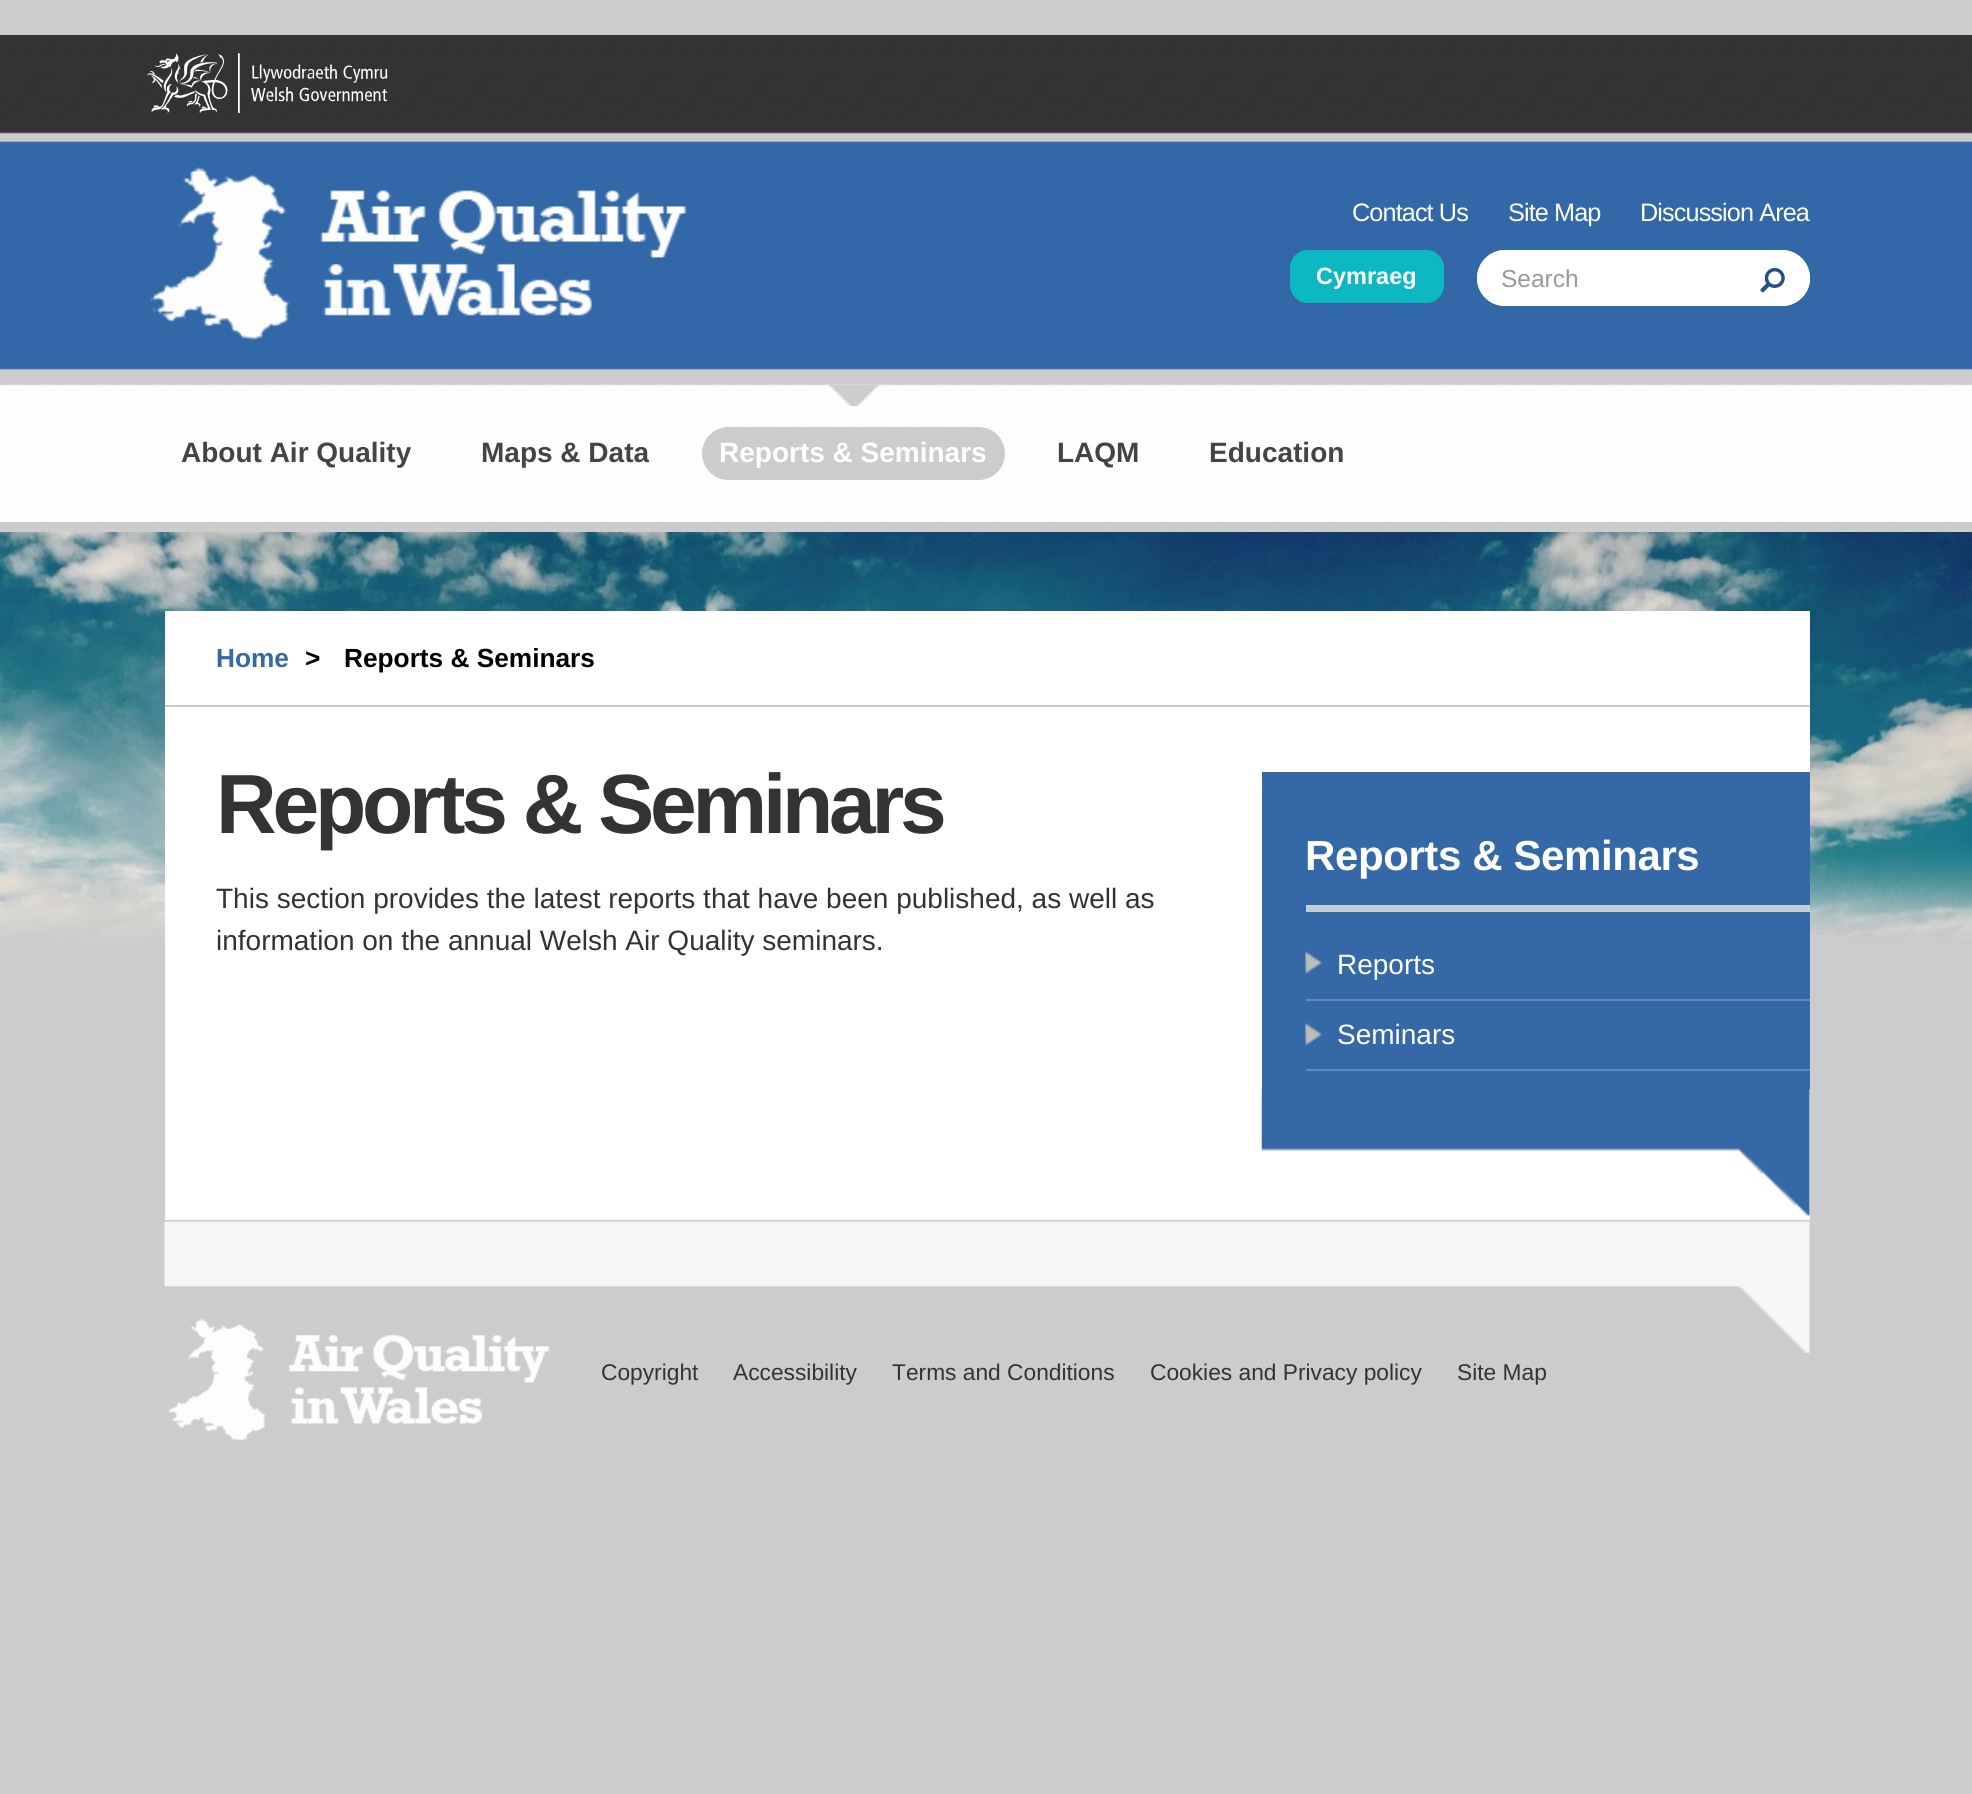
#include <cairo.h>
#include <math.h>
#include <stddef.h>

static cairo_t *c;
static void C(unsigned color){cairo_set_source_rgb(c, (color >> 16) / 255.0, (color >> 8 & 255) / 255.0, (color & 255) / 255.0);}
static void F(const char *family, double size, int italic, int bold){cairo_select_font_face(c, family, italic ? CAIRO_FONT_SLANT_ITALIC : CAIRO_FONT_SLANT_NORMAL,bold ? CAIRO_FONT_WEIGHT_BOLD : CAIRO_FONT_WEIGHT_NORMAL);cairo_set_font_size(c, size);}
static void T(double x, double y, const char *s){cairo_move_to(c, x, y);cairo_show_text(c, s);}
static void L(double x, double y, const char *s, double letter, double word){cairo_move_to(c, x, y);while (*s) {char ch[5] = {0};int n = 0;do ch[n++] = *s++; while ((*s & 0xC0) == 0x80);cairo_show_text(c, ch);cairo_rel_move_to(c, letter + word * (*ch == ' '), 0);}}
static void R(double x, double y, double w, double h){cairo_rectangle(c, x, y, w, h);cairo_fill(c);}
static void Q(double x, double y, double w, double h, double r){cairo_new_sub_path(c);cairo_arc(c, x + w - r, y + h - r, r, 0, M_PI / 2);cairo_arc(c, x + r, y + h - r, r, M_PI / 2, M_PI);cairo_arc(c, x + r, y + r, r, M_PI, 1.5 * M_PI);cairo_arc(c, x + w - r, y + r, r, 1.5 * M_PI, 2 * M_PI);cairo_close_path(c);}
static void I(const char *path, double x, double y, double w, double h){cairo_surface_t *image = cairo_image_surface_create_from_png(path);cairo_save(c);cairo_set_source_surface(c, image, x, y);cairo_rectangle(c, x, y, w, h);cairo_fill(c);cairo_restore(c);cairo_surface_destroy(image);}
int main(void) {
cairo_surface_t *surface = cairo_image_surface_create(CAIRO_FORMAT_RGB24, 1972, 1794);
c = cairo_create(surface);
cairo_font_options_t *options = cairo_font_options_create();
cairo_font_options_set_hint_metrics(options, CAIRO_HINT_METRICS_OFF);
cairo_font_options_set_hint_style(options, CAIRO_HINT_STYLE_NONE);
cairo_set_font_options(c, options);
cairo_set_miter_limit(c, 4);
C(0xcccccc);
cairo_paint(c);
I("1.png",0,35,1972,487);
I("2.png",147,53,241,60);
I("3.png",150,167,537,173);
F("Liberation Sans",25.25,0,0);
C(0xffffff);
L(1352,221,"Contact Us",-.9,0);
L(1508,221,"Site Map",-.9,0);
L(1640,221,"Discussion Area",-.9,0);
C(0x0cb8c2);
Q(1290,250,154,53,18);
cairo_fill(c);
F("Liberation Sans",23.5,0,1);
C(0xffffff);
T(1316,284,"Cymraeg");
cairo_new_path(c);
cairo_move_to(c,1505,250);
cairo_line_to(c,1740,250);
cairo_line_to(c,1740,306);
cairo_line_to(c,1505,306);
cairo_curve_to(c,1489.5,306,1477,293.5,1477,278);
cairo_curve_to(c,1477,262.5,1489.5,250,1505,250);
cairo_close_path(c);
cairo_fill(c);
cairo_set_fill_rule(c,CAIRO_FILL_RULE_EVEN_ODD);
cairo_new_path(c);
cairo_move_to(c,1505,250);
cairo_line_to(c,1740,250);
cairo_line_to(c,1740,306);
cairo_line_to(c,1505,306);
cairo_curve_to(c,1490,306,1477,294,1477,278);
cairo_curve_to(c,1477,263,1490,250,1505,250);
cairo_close_path(c);
cairo_move_to(c,1505,254);
cairo_line_to(c,1740,254);
cairo_line_to(c,1740,303);
cairo_line_to(c,1505,303);
cairo_curve_to(c,1491,303,1480,292,1480,278);
cairo_curve_to(c,1480,265,1491,254,1505,254);
cairo_close_path(c);
cairo_fill(c);
F("Liberation Sans",24.5,0,0);
C(0x999999);
T(1501,287,"Search");
C(0xffffff);
cairo_new_path(c);
cairo_move_to(c,1738,250);
cairo_line_to(c,1782,250);
cairo_curve_to(c,1797.5,250,1810,262.5,1810,278);
cairo_curve_to(c,1810,293.5,1797.5,306,1782,306);
cairo_line_to(c,1738,306);
cairo_close_path(c);
cairo_fill(c);
cairo_new_path(c);
cairo_move_to(c,1738,250);
cairo_line_to(c,1782,250);
cairo_curve_to(c,1797,250,1810,263,1810,278);
cairo_curve_to(c,1810,294,1797,306,1782,306);
cairo_line_to(c,1738,306);
cairo_close_path(c);
cairo_move_to(c,1738,254);
cairo_line_to(c,1782,254);
cairo_curve_to(c,1795,254,1806,265,1806,278);
cairo_curve_to(c,1806,292,1795,303,1782,303);
cairo_line_to(c,1738,303);
cairo_close_path(c);
cairo_fill(c);
I("4.png",1760,267,25,26);
F("Liberation Sans",28,0,1);
C(0x444444);
T(181,462,"About Air Quality");
T(481,462,"Maps & Data");
I("5.png",829,385,50,21);
C(0xcccccc);
Q(702,427,303,53,26.5);
cairo_fill(c);
C(0xffffff);
T(719,462,"Reports & Seminars");
C(0x444444);
T(1057,462,"LAQM");
T(1209,462,"Education");
I("6.png",0,532,1972,414);
C(0xffffff);
R(165,611,1645,609);
C(0xcccccc);
R(165,705,1645,2);
F("Liberation Sans",26.25,0,1);
C(0x3568a6);
T(216,667,"Home");
C(0x000000);
T(305,667,">");
T(344,667,"Reports & Seminars");
F("Liberation Sans",84,0,1);
C(0x333333);
L(216,833,"Reports & Seminars",-4.25,0);
F("Liberation Sans",28,0,0);
T(216,908,"This section provides the latest reports that have been published, as well as");
T(216,950,"information on the annual Welsh Air Quality seminars.");
C(0x3568a6);
R(1262,772,548,317);
C(0xc2ceda);
R(1306,905,504,7);
F("Liberation Sans",42,0,1);
C(0xffffff);
L(1305,870,"Reports & Seminars",-.4,0);
I("7.png",1305,951,17,23);
C(0x628bbb);
R(1306,999,504,2);
F("Liberation Sans",28,0,0);
C(0xffffff);
T(1337,974,"Reports");
I("8.png",1305,1023,17,23);
C(0x628bbb);
R(1306,1069,504,2);
C(0xffffff);
T(1337,1044,"Seminars");
I("9.png",1261,1088,549,128);
I("10.png",164,1221,1646,132);
I("11.png",167,1319,383,122);
F("Liberation Sans",22.75,0,0);
C(0x333333);
T(601,1380,"Copyright");
T(733,1380,"Accessibility");
T(892,1380,"Terms and Conditions");
T(1150,1380,"Cookies and Privacy policy");
T(1457,1380,"Site Map");
cairo_surface_write_to_png(surface, "o.png");
cairo_font_options_destroy(options);
cairo_destroy(c);
cairo_surface_destroy(surface);
return 0;
}
